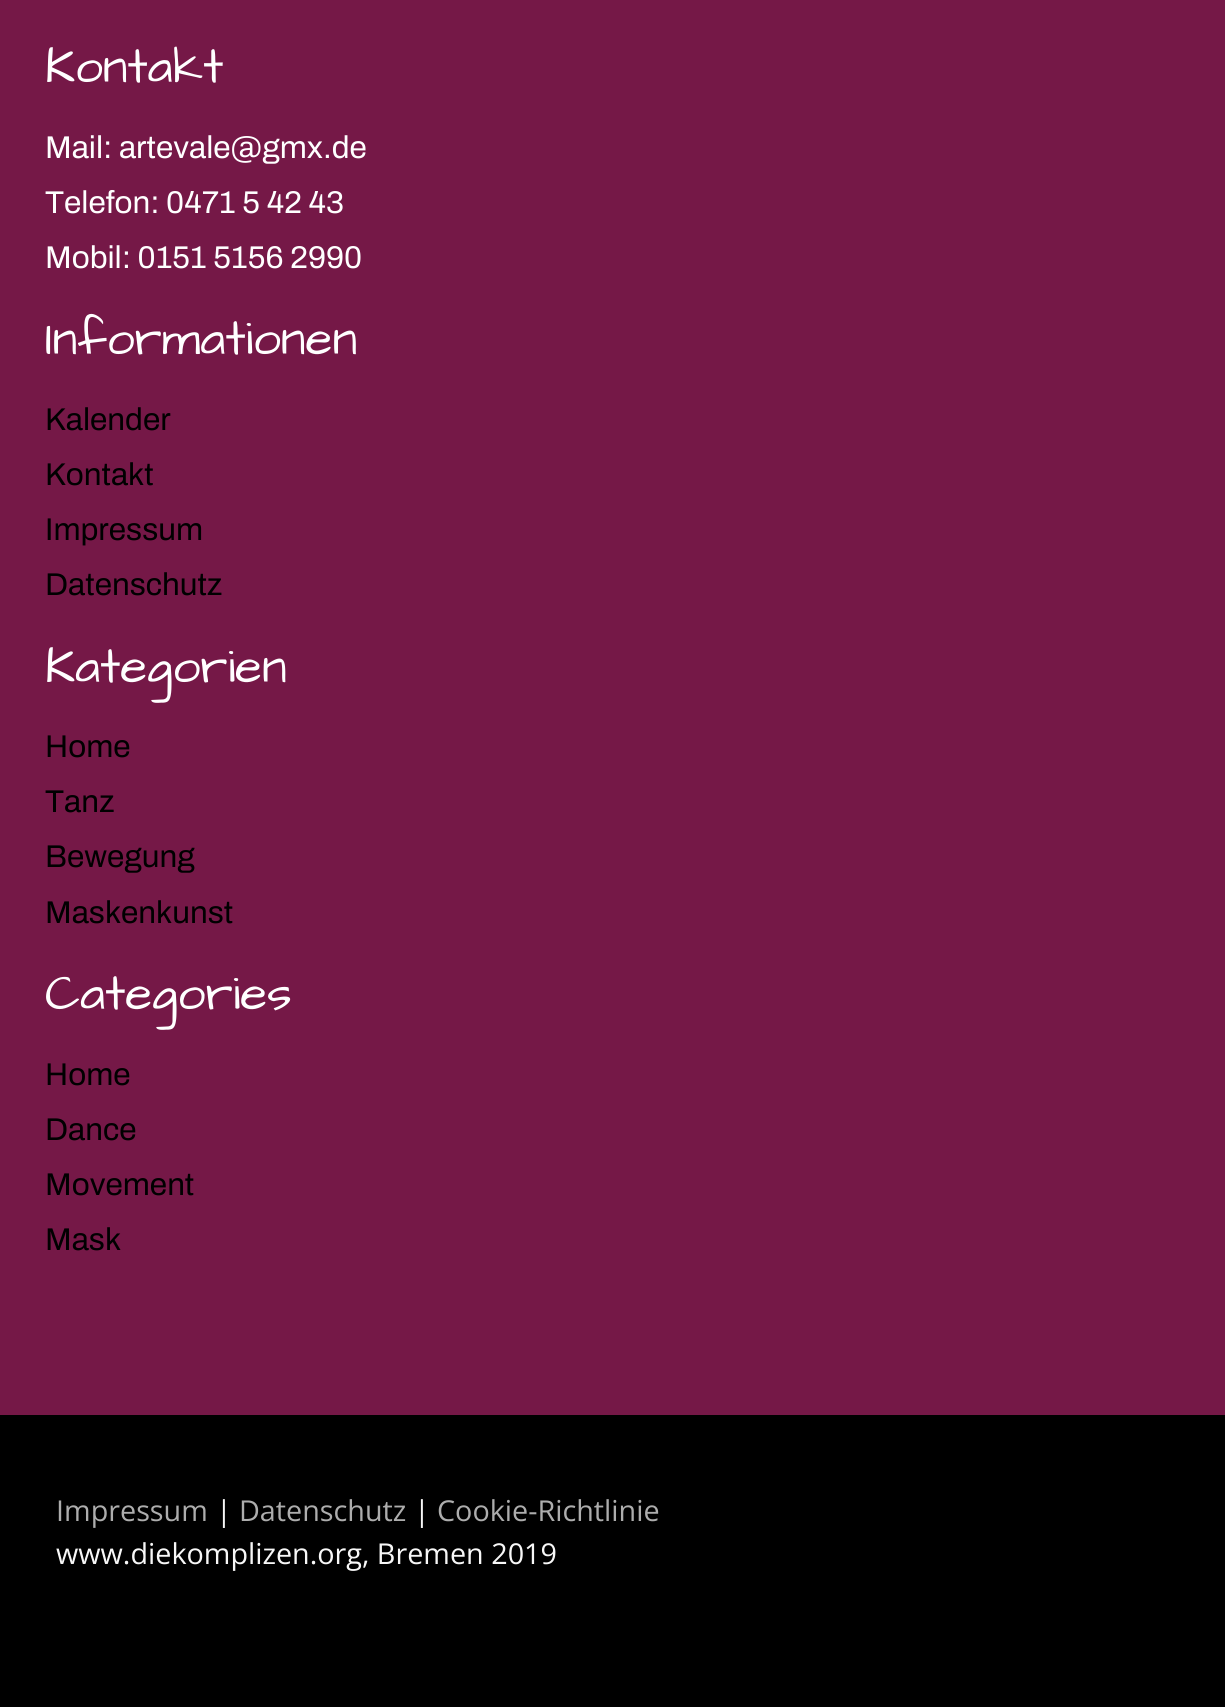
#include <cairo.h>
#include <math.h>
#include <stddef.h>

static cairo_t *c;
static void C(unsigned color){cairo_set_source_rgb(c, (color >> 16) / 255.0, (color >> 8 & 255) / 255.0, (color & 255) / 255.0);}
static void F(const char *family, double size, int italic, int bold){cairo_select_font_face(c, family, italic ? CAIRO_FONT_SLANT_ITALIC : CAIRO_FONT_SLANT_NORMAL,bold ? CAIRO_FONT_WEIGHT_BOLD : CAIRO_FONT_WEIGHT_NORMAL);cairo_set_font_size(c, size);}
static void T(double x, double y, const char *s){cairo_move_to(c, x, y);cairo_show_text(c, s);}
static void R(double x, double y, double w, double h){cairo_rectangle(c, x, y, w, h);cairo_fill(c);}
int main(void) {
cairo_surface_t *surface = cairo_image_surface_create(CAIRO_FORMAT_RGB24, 1225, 1707);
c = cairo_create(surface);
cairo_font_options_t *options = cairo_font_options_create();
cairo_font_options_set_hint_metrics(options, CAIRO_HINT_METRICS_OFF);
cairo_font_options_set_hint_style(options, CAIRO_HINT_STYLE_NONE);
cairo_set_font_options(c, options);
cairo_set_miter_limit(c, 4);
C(0x751847);
cairo_paint(c);
F("Architects Daughter",49.5,0,0);
C(0xffffff);
T(45,82,"Kontakt");
F("Archivo SemiBold",31.5,0,0);
T(45,158,"Mail: artevale@gmx.de");
T(45,213,"Telefon: 0471 5 42 43");
T(45,268,"Mobil: 0151 5156 2990");
F("Architects Daughter",49.5,0,0);
T(45,354,"Informationen");
F("Archivo SemiBold",31.5,0,0);
C(0x000000);
T(45,430,"Kalender");
T(45,485,"Kontakt");
T(45,540,"Impressum");
T(45,595,"Datenschutz");
F("Architects Daughter",49.5,0,0);
C(0xffffff);
T(45,682,"Kategorien");
F("Archivo SemiBold",31.5,0,0);
C(0x000000);
T(45,757,"Home");
T(45,812,"Tanz");
T(45,867,"Bewegung");
T(45,923,"Maskenkunst");
F("Architects Daughter",49.5,0,0);
C(0xffffff);
T(45,1009,"Categories");
F("Archivo SemiBold",31.5,0,0);
C(0x000000);
T(45,1085,"Home");
T(45,1140,"Dance");
T(45,1195,"Movement");
T(45,1250,"Mask");
R(0,1415,1225,292);
F("Open Sans",28.75,0,0);
C(0xadadad);
T(56,1521,"Impressum");
C(0xf7f7f7);
T(216,1521,"|");
C(0xadadad);
T(239,1521,"Datenschutz");
C(0xf7f7f7);
T(414,1521,"|");
C(0xadadad);
T(437,1521,"Cookie-Richtlinie");
C(0xf7f7f7);
T(56,1564,"www.diekomplizen.org, Bremen 2019");
cairo_surface_write_to_png(surface, "o.png");
cairo_font_options_destroy(options);
cairo_destroy(c);
cairo_surface_destroy(surface);
return 0;
}
